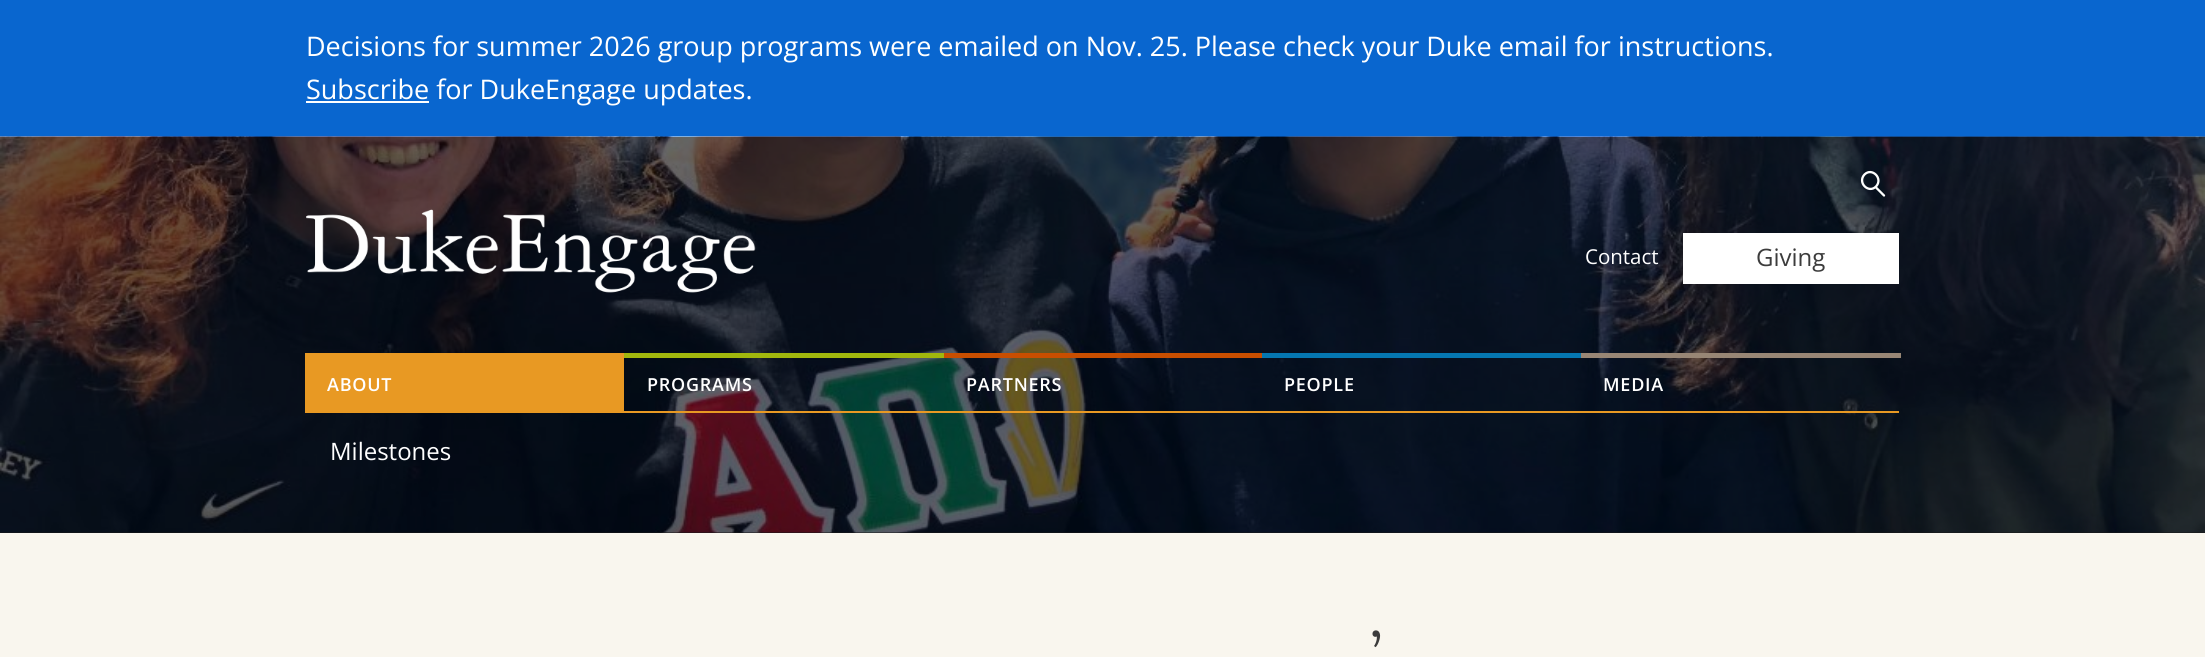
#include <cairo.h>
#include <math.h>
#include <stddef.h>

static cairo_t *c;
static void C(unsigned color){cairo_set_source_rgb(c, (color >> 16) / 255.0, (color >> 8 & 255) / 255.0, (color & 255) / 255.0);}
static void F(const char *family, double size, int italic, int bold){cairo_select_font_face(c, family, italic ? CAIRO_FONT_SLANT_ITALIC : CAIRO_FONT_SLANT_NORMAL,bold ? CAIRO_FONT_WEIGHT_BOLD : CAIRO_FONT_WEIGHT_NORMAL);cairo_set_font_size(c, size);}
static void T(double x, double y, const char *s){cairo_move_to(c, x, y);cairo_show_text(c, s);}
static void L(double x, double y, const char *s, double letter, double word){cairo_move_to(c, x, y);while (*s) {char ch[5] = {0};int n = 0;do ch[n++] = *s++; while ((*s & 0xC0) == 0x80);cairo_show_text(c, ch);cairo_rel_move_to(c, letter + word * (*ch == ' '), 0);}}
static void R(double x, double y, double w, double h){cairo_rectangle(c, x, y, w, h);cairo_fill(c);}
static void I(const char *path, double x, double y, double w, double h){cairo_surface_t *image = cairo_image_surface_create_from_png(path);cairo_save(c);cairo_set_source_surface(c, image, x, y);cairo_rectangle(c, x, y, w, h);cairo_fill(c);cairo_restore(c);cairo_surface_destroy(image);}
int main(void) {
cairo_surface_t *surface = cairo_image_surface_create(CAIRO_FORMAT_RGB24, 2205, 657);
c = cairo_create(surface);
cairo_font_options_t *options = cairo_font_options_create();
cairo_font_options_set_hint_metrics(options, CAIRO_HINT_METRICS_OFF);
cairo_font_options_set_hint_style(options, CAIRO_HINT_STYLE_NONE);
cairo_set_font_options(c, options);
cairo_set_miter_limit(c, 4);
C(0xf9f6ee);
cairo_paint(c);
C(0x0966cf);
R(0,0,2205,137);
F("Open Sans",27,0,0);
C(0xffffff);
T(306,56,"Decisions for summer 2026 group programs were emailed on Nov. 25. Please check your Duke email for instructions.");
R(306,101,123,2);
T(306,99,"Subscribe for DukeEngage updates.");
C(0x181818);
R(0,532,2205,1);
I("1.png",0,136,2205,397);
I("2.png",306,209,450,84);
cairo_new_path(c);
cairo_move_to(c,1876.5,188);
cairo_line_to(c,1884,195.5);
C(0xffffff);
cairo_set_line_width(c,2.3);
cairo_set_line_cap(c,CAIRO_LINE_CAP_ROUND);
cairo_stroke(c);
cairo_new_path(c);
cairo_move_to(c,1864.5,174.5);
cairo_curve_to(c,1872,167,1883.5,178.5,1876,186.5);
cairo_curve_to(c,1868.5,194,1857,182.5,1864.5,174.5);
cairo_close_path(c);
cairo_set_line_cap(c,CAIRO_LINE_CAP_BUTT);
cairo_stroke(c);
F("Open Sans",20.5,0,0);
T(1585,264,"Contact");
R(1683,233,216,51);
F("Open Sans",24,0,0);
C(0x3c3c3c);
T(1756,266,"Giving");
C(0xe89923);
R(624,411,1275,2);
R(305,353,319,60);
F("Open Sans SemiBold",18,0,0);
C(0xffffff);
L(327,391,"ABOUT",.75,0);
C(0xa1b70d);
R(624,353,320,5);
C(0xffffff);
L(647,391,"PROGRAMS",.75,0);
C(0xc84e00);
R(944,353,318,5);
C(0xffffff);
L(966,391,"PARTNERS",.75,0);
C(0x0577b1);
R(1262,353,319,5);
C(0xffffff);
L(1284,391,"PEOPLE",.75,0);
C(0x988675);
R(1581,353,320,5);
C(0xffffff);
L(1603,391,"MEDIA",.75,0);
F("Open Sans",24,0,0);
T(330,460,"Milestones");
F("Lora",60,0,0);
C(0x3c3c3c);
T(1371,676,"’");
cairo_surface_write_to_png(surface, "o.png");
cairo_font_options_destroy(options);
cairo_destroy(c);
cairo_surface_destroy(surface);
return 0;
}
